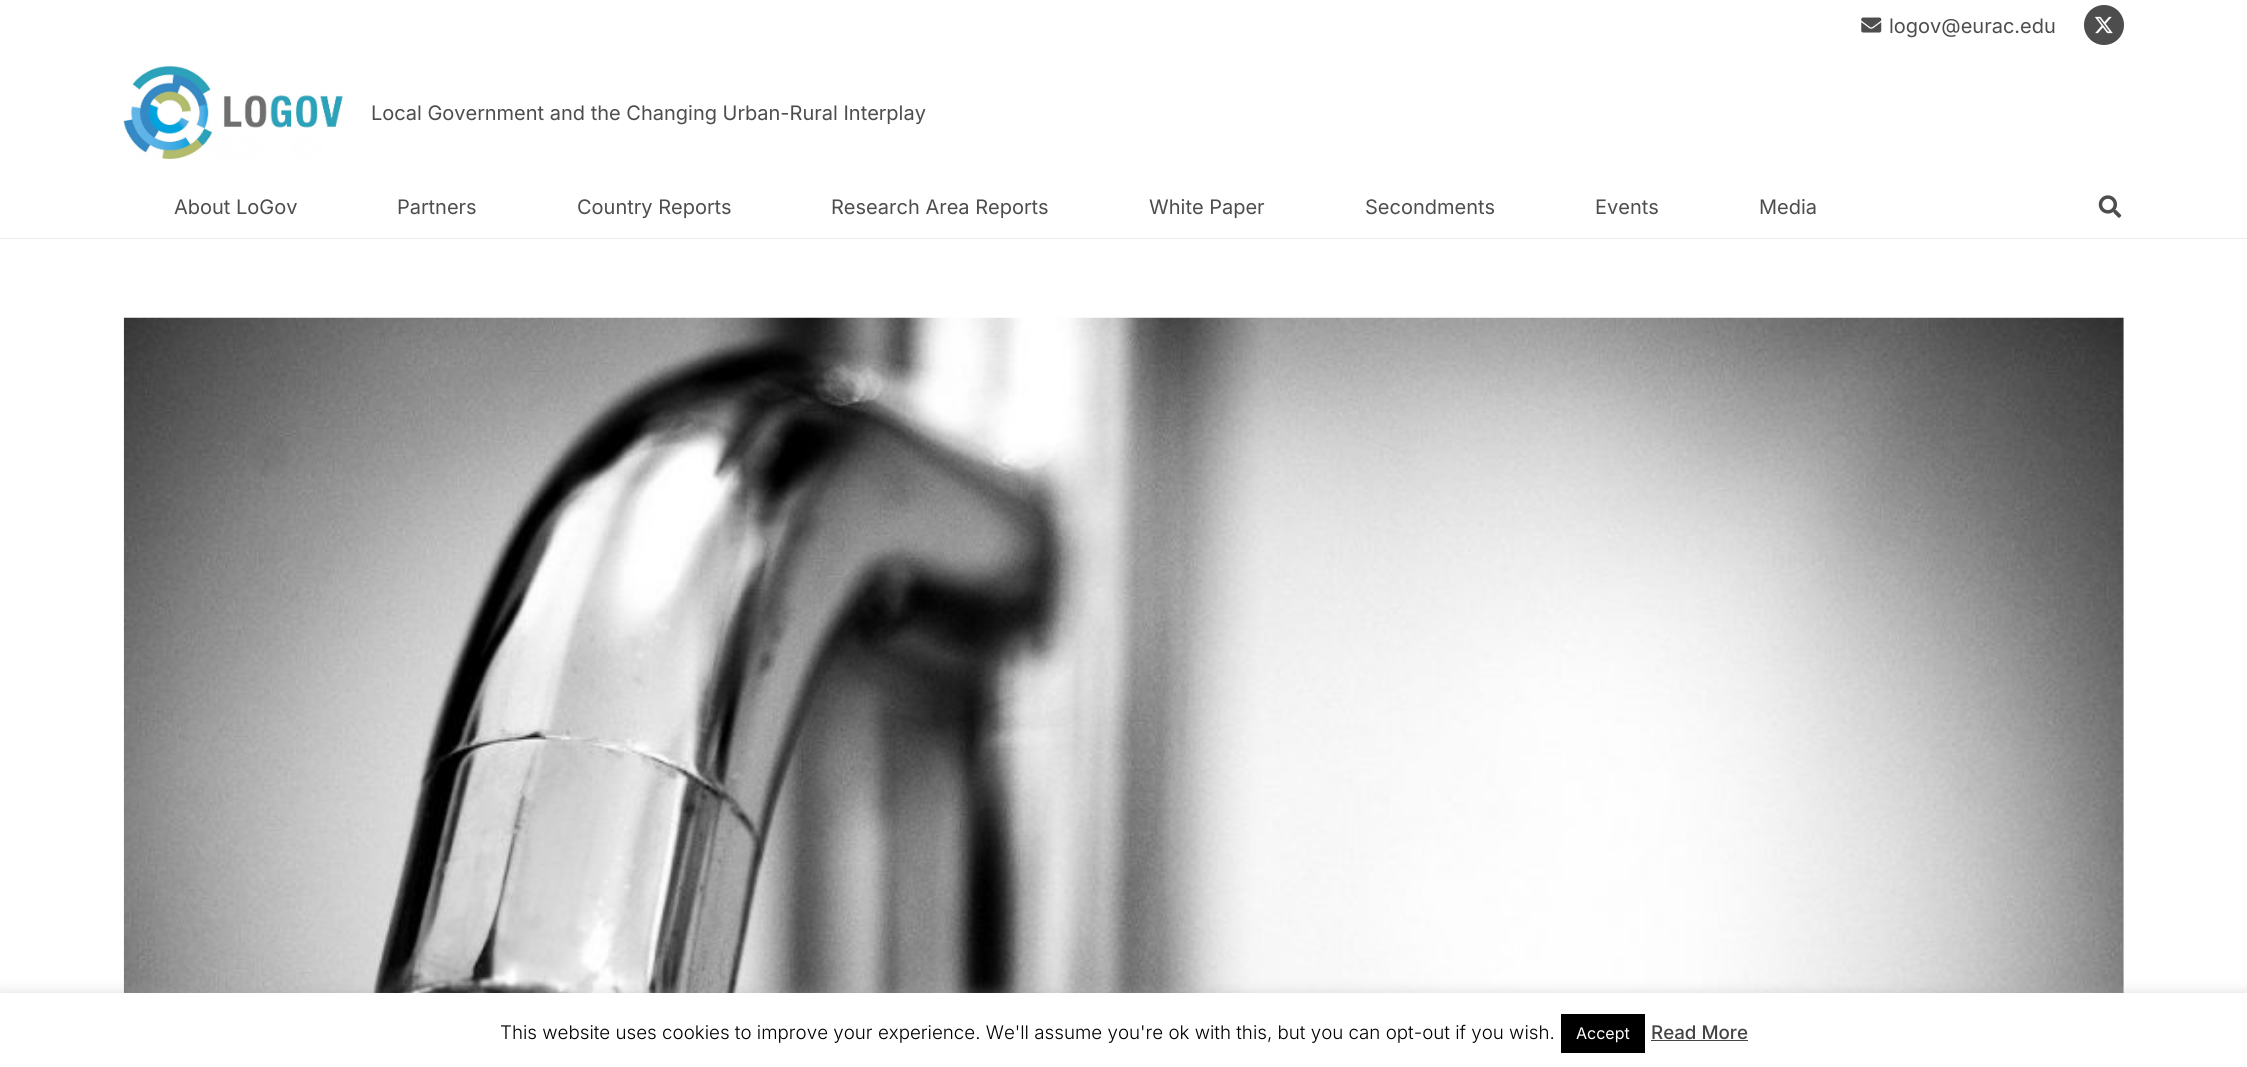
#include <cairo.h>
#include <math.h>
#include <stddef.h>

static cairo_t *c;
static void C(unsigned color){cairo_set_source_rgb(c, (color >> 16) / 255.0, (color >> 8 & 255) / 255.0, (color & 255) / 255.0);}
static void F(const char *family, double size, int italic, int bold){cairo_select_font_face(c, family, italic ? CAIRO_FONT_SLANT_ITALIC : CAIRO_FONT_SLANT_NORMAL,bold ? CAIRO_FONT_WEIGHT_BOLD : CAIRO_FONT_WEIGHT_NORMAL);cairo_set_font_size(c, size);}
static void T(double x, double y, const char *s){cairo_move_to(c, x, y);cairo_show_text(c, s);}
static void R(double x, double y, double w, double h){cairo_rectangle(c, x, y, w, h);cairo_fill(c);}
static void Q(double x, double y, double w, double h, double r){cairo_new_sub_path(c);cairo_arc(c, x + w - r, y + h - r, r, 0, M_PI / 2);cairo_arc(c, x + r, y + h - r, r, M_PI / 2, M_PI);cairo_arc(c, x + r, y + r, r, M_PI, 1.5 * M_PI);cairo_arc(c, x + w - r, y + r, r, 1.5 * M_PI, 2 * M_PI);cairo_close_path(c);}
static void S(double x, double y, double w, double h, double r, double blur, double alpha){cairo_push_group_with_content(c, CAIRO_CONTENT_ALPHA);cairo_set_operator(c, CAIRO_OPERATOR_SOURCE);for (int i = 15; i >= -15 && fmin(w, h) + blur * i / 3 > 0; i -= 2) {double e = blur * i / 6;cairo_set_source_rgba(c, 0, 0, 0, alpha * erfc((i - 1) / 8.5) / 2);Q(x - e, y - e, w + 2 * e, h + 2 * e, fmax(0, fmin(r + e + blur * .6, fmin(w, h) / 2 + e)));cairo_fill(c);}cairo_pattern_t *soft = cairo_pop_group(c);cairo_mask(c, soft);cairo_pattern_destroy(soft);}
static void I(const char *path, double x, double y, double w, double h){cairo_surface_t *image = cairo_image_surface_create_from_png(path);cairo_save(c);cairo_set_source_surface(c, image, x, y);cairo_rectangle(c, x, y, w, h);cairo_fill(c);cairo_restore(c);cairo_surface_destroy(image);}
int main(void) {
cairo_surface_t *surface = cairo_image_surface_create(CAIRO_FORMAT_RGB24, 2247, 1067);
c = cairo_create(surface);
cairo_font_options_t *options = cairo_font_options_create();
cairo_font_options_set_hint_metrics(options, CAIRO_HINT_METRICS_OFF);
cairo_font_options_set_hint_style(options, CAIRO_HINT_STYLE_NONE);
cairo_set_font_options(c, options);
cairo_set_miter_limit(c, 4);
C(0xffffff);
cairo_paint(c);
I("1.png",1861,17,21,16);
F("Inter",20,0,0);
C(0x4d4d4d);
T(1889,33,"logov@eurac.edu");
cairo_new_path(c);
cairo_arc(c,2104,25,20,0,2 * M_PI);
cairo_fill(c);
I("2.png",2095,16,18,18);
I("3.png",123,65,220,94);
T(371,120,"Local Government and the Changing Urban-Rural Interplay");
C(0xebebeb);
cairo_new_path(c);
cairo_move_to(c,0,238);
cairo_line_to(c,0,239);
cairo_line_to(c,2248,239);
cairo_line_to(c,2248,176);
cairo_line_to(c,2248,238);
cairo_close_path(c);
cairo_fill(c);
C(0x4d4d4d);
T(174,214,"About LoGov");
T(397,214,"Partners");
T(577,214,"Country Reports");
T(831,214,"Research Area Reports");
T(1149,214,"White Paper");
T(1365,214,"Secondments");
T(1595,214,"Events");
T(1759,214,"Media");
I("4.png",2098,195,24,23);
I("5.png",123,317,2001,676);
C(0xacabab);
S(0,991,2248,75,0,6,.3);
C(0xffffff);
R(0,993,2247,74);
F("Inter Light",18.75,0,0);
C(0x000000);
T(500,1039,"This website uses cookies to improve your experience. We'll assume you're ok with this, but you can opt-out if you wish.");
R(1561,1014,84,39);
F("Inter",16,0,0);
C(0xffffff);
T(1576,1039,"Accept");
F("Inter Medium",18.75,0,0);
C(0x444444);
T(1651,1039,"Read More");
R(1651,1040,97,1);
cairo_surface_write_to_png(surface, "o.png");
cairo_font_options_destroy(options);
cairo_destroy(c);
cairo_surface_destroy(surface);
return 0;
}
